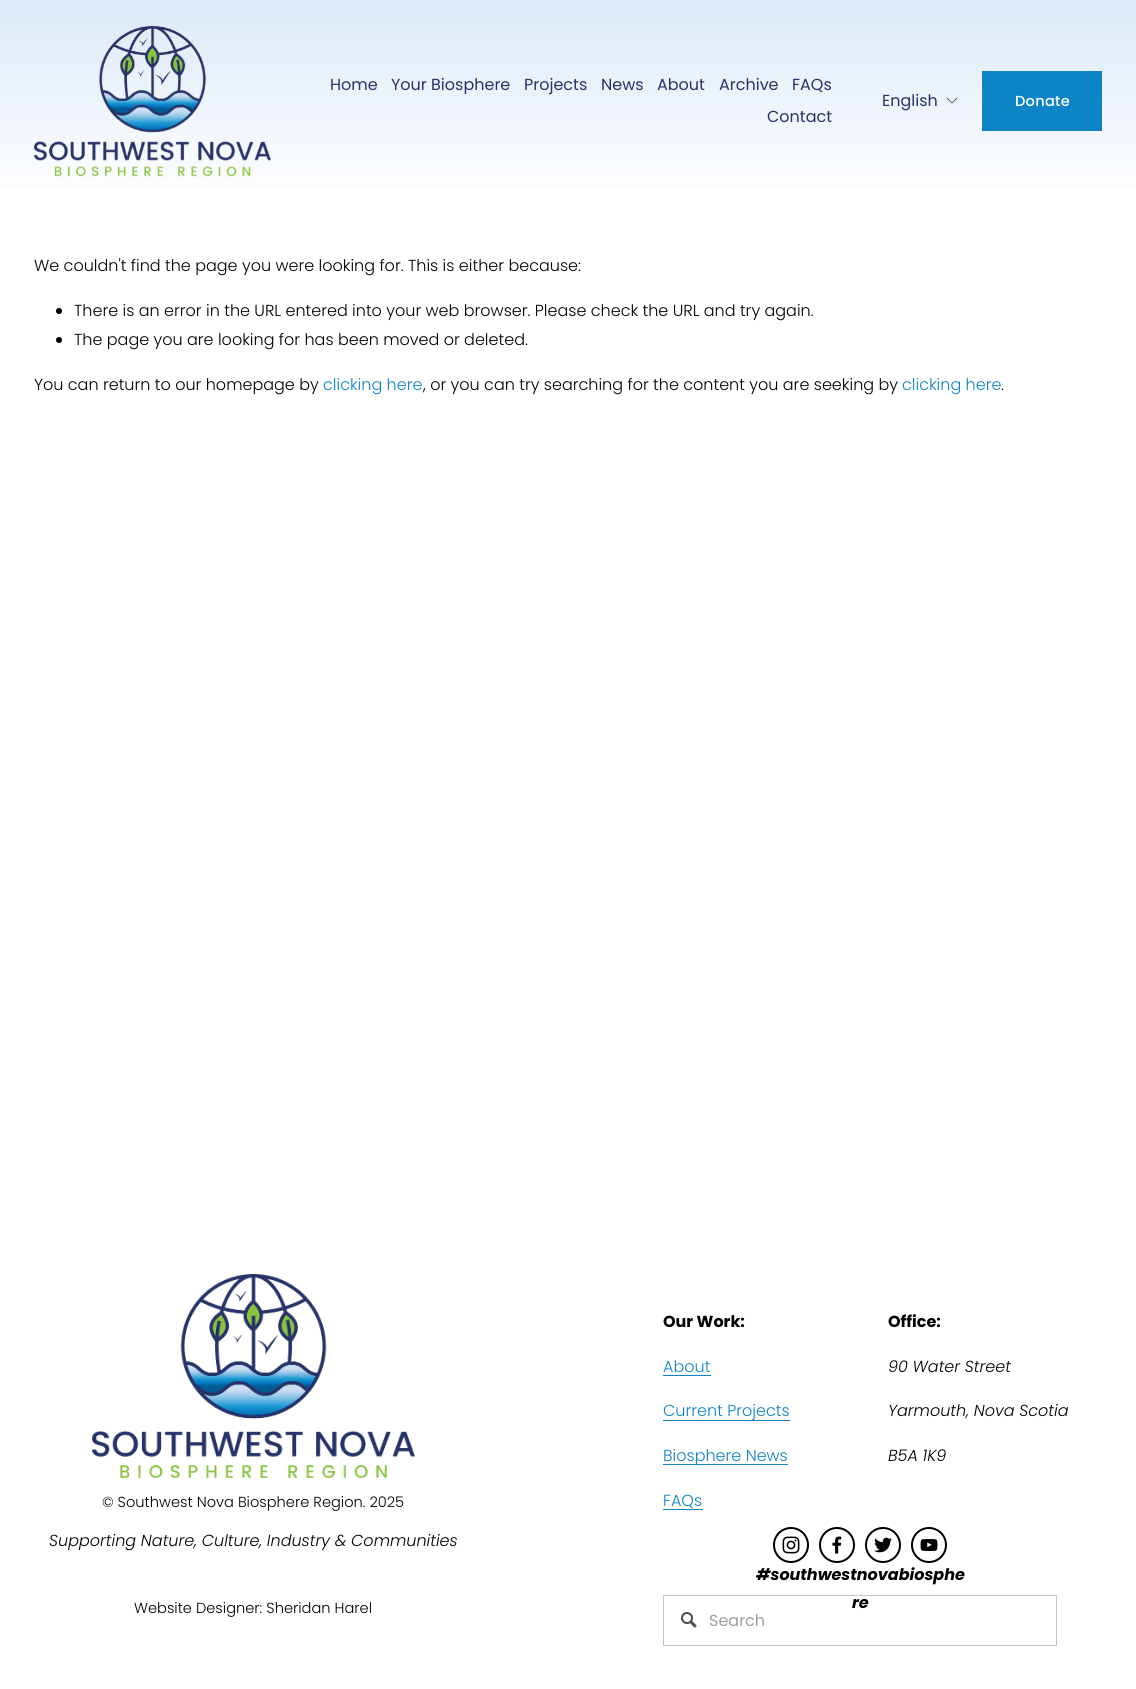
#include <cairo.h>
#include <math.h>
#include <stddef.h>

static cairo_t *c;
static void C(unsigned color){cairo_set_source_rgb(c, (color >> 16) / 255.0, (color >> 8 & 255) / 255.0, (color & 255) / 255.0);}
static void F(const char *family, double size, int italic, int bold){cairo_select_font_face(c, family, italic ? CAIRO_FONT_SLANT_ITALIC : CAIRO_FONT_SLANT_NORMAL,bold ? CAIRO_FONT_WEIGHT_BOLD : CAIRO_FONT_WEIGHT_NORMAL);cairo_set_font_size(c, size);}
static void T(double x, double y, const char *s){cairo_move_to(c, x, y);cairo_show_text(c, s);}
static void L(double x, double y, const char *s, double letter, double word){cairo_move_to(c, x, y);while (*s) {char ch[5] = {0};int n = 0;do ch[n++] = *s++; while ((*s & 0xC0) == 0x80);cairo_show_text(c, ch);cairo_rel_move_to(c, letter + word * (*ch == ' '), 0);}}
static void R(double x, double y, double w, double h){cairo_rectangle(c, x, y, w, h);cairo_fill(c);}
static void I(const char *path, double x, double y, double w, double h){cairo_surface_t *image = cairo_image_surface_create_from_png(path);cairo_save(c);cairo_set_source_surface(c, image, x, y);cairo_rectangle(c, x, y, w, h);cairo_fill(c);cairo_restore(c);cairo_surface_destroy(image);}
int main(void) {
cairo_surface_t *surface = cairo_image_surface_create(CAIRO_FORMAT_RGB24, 1136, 1689);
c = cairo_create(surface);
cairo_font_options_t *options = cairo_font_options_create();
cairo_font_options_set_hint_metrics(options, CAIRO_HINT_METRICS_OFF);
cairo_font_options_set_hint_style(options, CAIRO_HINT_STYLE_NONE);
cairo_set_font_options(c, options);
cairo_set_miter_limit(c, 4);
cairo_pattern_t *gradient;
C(0xffffff);
cairo_paint(c);
gradient = cairo_pattern_create_linear(568,0,568,202);
cairo_pattern_add_color_stop_rgba(gradient,0,0.863,0.914,0.969,1);
cairo_pattern_add_color_stop_rgba(gradient,1,1,1,1,1);
cairo_set_source(c,gradient);
cairo_pattern_destroy(gradient);
R(0,0,1136,188);
I("1.png",34,26,237,151);
F("Poppins",16,0,0);
C(0x263368);
T(330,90,"Home");
T(391,90,"Your Biosphere");
T(524,90,"Projects");
T(601,90,"News");
T(657,90,"About");
T(719,90,"Archive");
T(792,90,"FAQs");
T(767,122,"Contact");
T(882,106,"English");
cairo_new_path(c);
cairo_move_to(c,957,98);
cairo_line_to(c,952,103);
cairo_line_to(c,947,98);
cairo_set_line_width(c,.7);
cairo_set_line_cap(c,CAIRO_LINE_CAP_SQUARE);
cairo_stroke(c);
C(0x0c84c6);
R(982,71,120,60);
F("Poppins Medium",14.6,0,0);
C(0xffffff);
L(1015,106,"Donate",.25,0);
F("Poppins Light",16,0,0);
C(0x000000);
T(34,271,"We couldn't find the page you were looking for. This is either because:");
cairo_new_path(c);
cairo_arc(c,59,311,3,0,2 * M_PI);
cairo_fill(c);
T(74,316,"There is an error in the URL entered into your web browser. Please check the URL and try again.");
cairo_new_path(c);
cairo_arc(c,59,340,3,0,2 * M_PI);
cairo_fill(c);
T(74,345,"The page you are looking for has been moved or deleted.");
T(34,390,"You can return to our homepage by");
C(0x0c84c6);
T(323,390,"clicking here");
C(0x000000);
T(423,390,", or you can try searching for the content you are seeking by");
C(0x0c84c6);
T(902,390,"clicking here");
C(0x000000);
T(1001,390,".");
I("2.png",92,1274,323,204);
F("Poppins",16,0,1);
T(663,1327,"Our Work:");
F("Poppins Light",16,0,0);
C(0x0c84c6);
T(663,1372,"About");
R(663,1375,48,1);
R(663,1420,127,1);
T(663,1416,"Current Projects");
R(663,1464,125,1);
T(663,1461,"Biosphere News");
T(663,1506,"FAQs");
R(663,1509,40,1);
F("Poppins",16,0,1);
C(0x000000);
T(888,1327,"Office:");
F("Poppins Light",16,1,0);
T(888,1372,"90 Water Street");
T(888,1416,"Yarmouth, Nova Scotia");
T(888,1461,"B5A 1K9");
F("Poppins Light",14.6,0,0);
T(102,1507,"© Southwest Nova Biosphere Region. 2025");
F("Poppins Light",16,1,0);
T(49,1546,"Supporting Nature, Culture, Industry & Communities");
cairo_new_path(c);
cairo_arc(c,791,1545,17,0,2 * M_PI);
cairo_set_line_width(c,2);
cairo_set_line_cap(c,CAIRO_LINE_CAP_BUTT);
cairo_stroke(c);
I("3.png",782,1536,18,18);
cairo_arc(c,837,1545,17,0,2 * M_PI);
cairo_stroke(c);
I("4.png",832,1536,10,18);
cairo_arc(c,883,1545,17,0,2 * M_PI);
cairo_stroke(c);
I("5.png",874,1537,18,16);
cairo_arc(c,929,1545,17,0,2 * M_PI);
cairo_stroke(c);
I("6.png",920,1539,18,12);
F("Poppins Light",14.6,0,0);
T(134,1613,"Website Designer: Sheridan Harel");
F("Poppins",16,1,1);
T(756,1580,"#southwestnovabiosphe");
T(852,1608,"re");
I("7.png",681,1612,16,16);
cairo_rectangle(c,663.5,1595.5,393,50);
C(0xc4c4c4);
cairo_set_line_width(c,1);
cairo_stroke(c);
F("Poppins",16,0,0);
C(0x9e9e9e);
T(709,1626,"Search");
cairo_surface_write_to_png(surface, "o.png");
cairo_font_options_destroy(options);
cairo_destroy(c);
cairo_surface_destroy(surface);
return 0;
}
